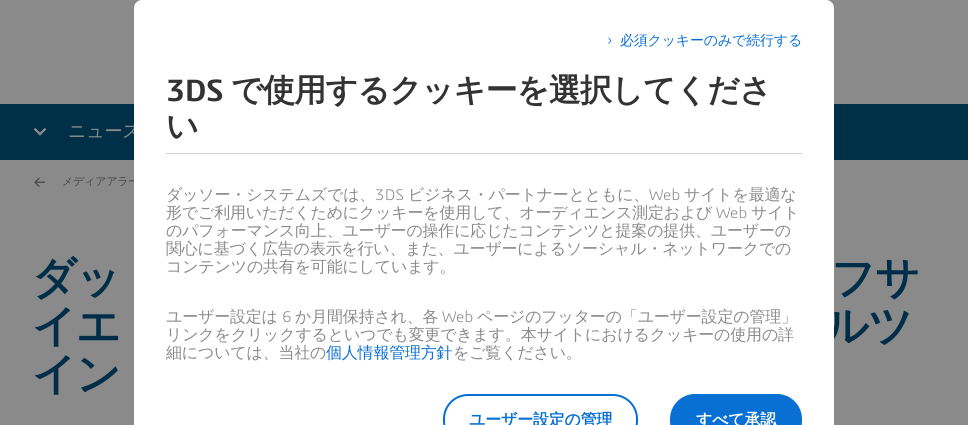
#include <cairo.h>
#include <math.h>
#include <stddef.h>

static cairo_t *c;
static void C(unsigned color){cairo_set_source_rgb(c, (color >> 16) / 255.0, (color >> 8 & 255) / 255.0, (color & 255) / 255.0);}
static void F(const char *family, double size, int italic, int bold){cairo_select_font_face(c, family, italic ? CAIRO_FONT_SLANT_ITALIC : CAIRO_FONT_SLANT_NORMAL,bold ? CAIRO_FONT_WEIGHT_BOLD : CAIRO_FONT_WEIGHT_NORMAL);cairo_set_font_size(c, size);}
static void L(double x, double y, const char *s, double letter, double word){cairo_move_to(c, x, y);while (*s) {char ch[5] = {0};int n = 0;do ch[n++] = *s++; while ((*s & 0xC0) == 0x80);cairo_show_text(c, ch);cairo_rel_move_to(c, letter + word * (*ch == ' '), 0);}}
static void R(double x, double y, double w, double h){cairo_rectangle(c, x, y, w, h);cairo_fill(c);}
static void Q(double x, double y, double w, double h, double r){cairo_new_sub_path(c);cairo_arc(c, x + w - r, y + h - r, r, 0, M_PI / 2);cairo_arc(c, x + r, y + h - r, r, M_PI / 2, M_PI);cairo_arc(c, x + r, y + r, r, M_PI, 1.5 * M_PI);cairo_arc(c, x + w - r, y + r, r, 1.5 * M_PI, 2 * M_PI);cairo_close_path(c);}
static void I(const char *path, double x, double y, double w, double h){cairo_surface_t *image = cairo_image_surface_create_from_png(path);cairo_save(c);cairo_set_source_surface(c, image, x, y);cairo_rectangle(c, x, y, w, h);cairo_fill(c);cairo_restore(c);cairo_surface_destroy(image);}
int main(void) {
cairo_surface_t *surface = cairo_image_surface_create(CAIRO_FORMAT_RGB24, 968, 425);
c = cairo_create(surface);
cairo_font_options_t *options = cairo_font_options_create();
cairo_font_options_set_hint_metrics(options, CAIRO_HINT_METRICS_OFF);
cairo_font_options_set_hint_style(options, CAIRO_HINT_STYLE_NONE);
cairo_set_font_options(c, options);
cairo_set_miter_limit(c, 4);
C(0x8a8a8a);
cairo_paint(c);
C(0x003048);
R(0,104,968,56);
F("WenQuanYi Zen Hei Medium",18,0,0);
C(0x8a8a8a);
L(68,137,"ニュース",-.2,0);
F("WenQuanYi Zen Hei Medium",11,0,0);
C(0x484848);
L(62,185,"メディアアラー",-.2,0);
F("WenQuanYi Zen Hei",44,0,1);
C(0x002e48);
L(824,341,"ルツ",-1,0);
C(0xffffff);
cairo_new_path(c);
cairo_move_to(c,142,0);
cairo_line_to(c,826,0);
cairo_curve_to(c,830.5,0,834,3.5,834,8);
cairo_line_to(c,834,394);
cairo_line_to(c,134,394);
cairo_line_to(c,134,8);
cairo_curve_to(c,134,3.5,137.5,0,142,0);
cairo_close_path(c);
cairo_fill(c);
C(0xd1d1d1);
R(166,153,636,1);
F("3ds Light",16,0,0);
C(0x0870d3);
L(607,45,"›",-.2,0);
F("WenQuanYi Zen Hei Medium",14,0,0);
L(620,45,"必須クッキーのみで続行する",-.2,0);
F("3ds SemiBold",32,0,0);
C(0x333333);
L(166,101,"3DS",-.75,0);
F("WenQuanYi Zen Hei",32,0,1);
L(231,101,"で使用するクッキーを選択してくださ",-.75,0);
L(166,137,"い",-.75,0);
F("WenQuanYi Zen Hei Medium",16,0,0);
C(0x8a8a8a);
L(166,200,"ダッソー・システムズでは、",-.2,0);
F("3ds Light",16,0,0);
L(375,200,"3DS",-.2,0);
F("WenQuanYi Zen Hei Medium",16,0,0);
L(408,200,"ビジネス・パートナーとともに、",-.2,0);
F("3ds Light",16,0,0);
L(649,200,"Web",-.2,0);
F("WenQuanYi Zen Hei Medium",16,0,0);
L(684,200,"サイトを最適な",-.2,0);
L(166,218,"形でご利用いただくためにクッキーを使用して、オーディエンス測定および",-.2,0);
F("3ds Light",16,0,0);
L(716,218,"Web",-.2,0);
F("WenQuanYi Zen Hei Medium",16,0,0);
L(751,218,"サイト",-.2,0);
L(166,236,"のパフォーマンス向上、ユーザーの操作に応じたコンテンツと提案の提供、ユーザーの",-.2,0);
L(166,254,"関心に基づく広告の表示を行い、また、ユーザーによるソーシャル・ネットワークでの",-.2,0);
L(166,272,"コンテンツの共有を可能にしています。",-.2,0);
L(166,322,"ユーザー設定は",-.2,0);
F("3ds Light",16,0,0);
L(282,322,"6",-.2,0);
F("WenQuanYi Zen Hei Medium",16,0,0);
L(295,322,"か月間保持され、各",-.2,0);
F("3ds Light",16,0,0);
L(442,322,"Web",-.2,0);
F("WenQuanYi Zen Hei Medium",16,0,0);
L(477,322,"ページのフッターの「ユーザー設定の管理」",-.2,0);
L(166,340,"リンクをクリックするといつでも変更できます。本サイトにおけるクッキーの使用の詳",-.2,0);
L(166,358,"細については、当社の",-.2,0);
C(0x0870d3);
L(326,358,"個人情報管理方針",-.2,0);
C(0x8a8a8a);
L(453,358,"をご覧ください。",-.2,0);
C(0xffffff);
R(134,394,700,31);
Q(444,395,193,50,24);
C(0x0870d3);
cairo_stroke(c);
F("WenQuanYi Zen Hei",16,0,1);
L(469,425,"ユーザー設定の管理",-.2,0);
Q(670,394,132,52,25);
cairo_fill(c);
C(0xffffff);
L(696,425,"すべて承認",-.2,0);
I("1.png",33,127,14,9);
I("2.png",34,177,11,10);
F("WenQuanYi Zen Hei",44,0,1);
C(0x002e48);
L(32,293,"ダッ",-1,0);
L(831,293,"フサ",-1,0);
L(32,341,"イエ",-1,0);
L(32,389,"イン",-1,0);
cairo_surface_write_to_png(surface, "o.png");
cairo_font_options_destroy(options);
cairo_destroy(c);
cairo_surface_destroy(surface);
return 0;
}
